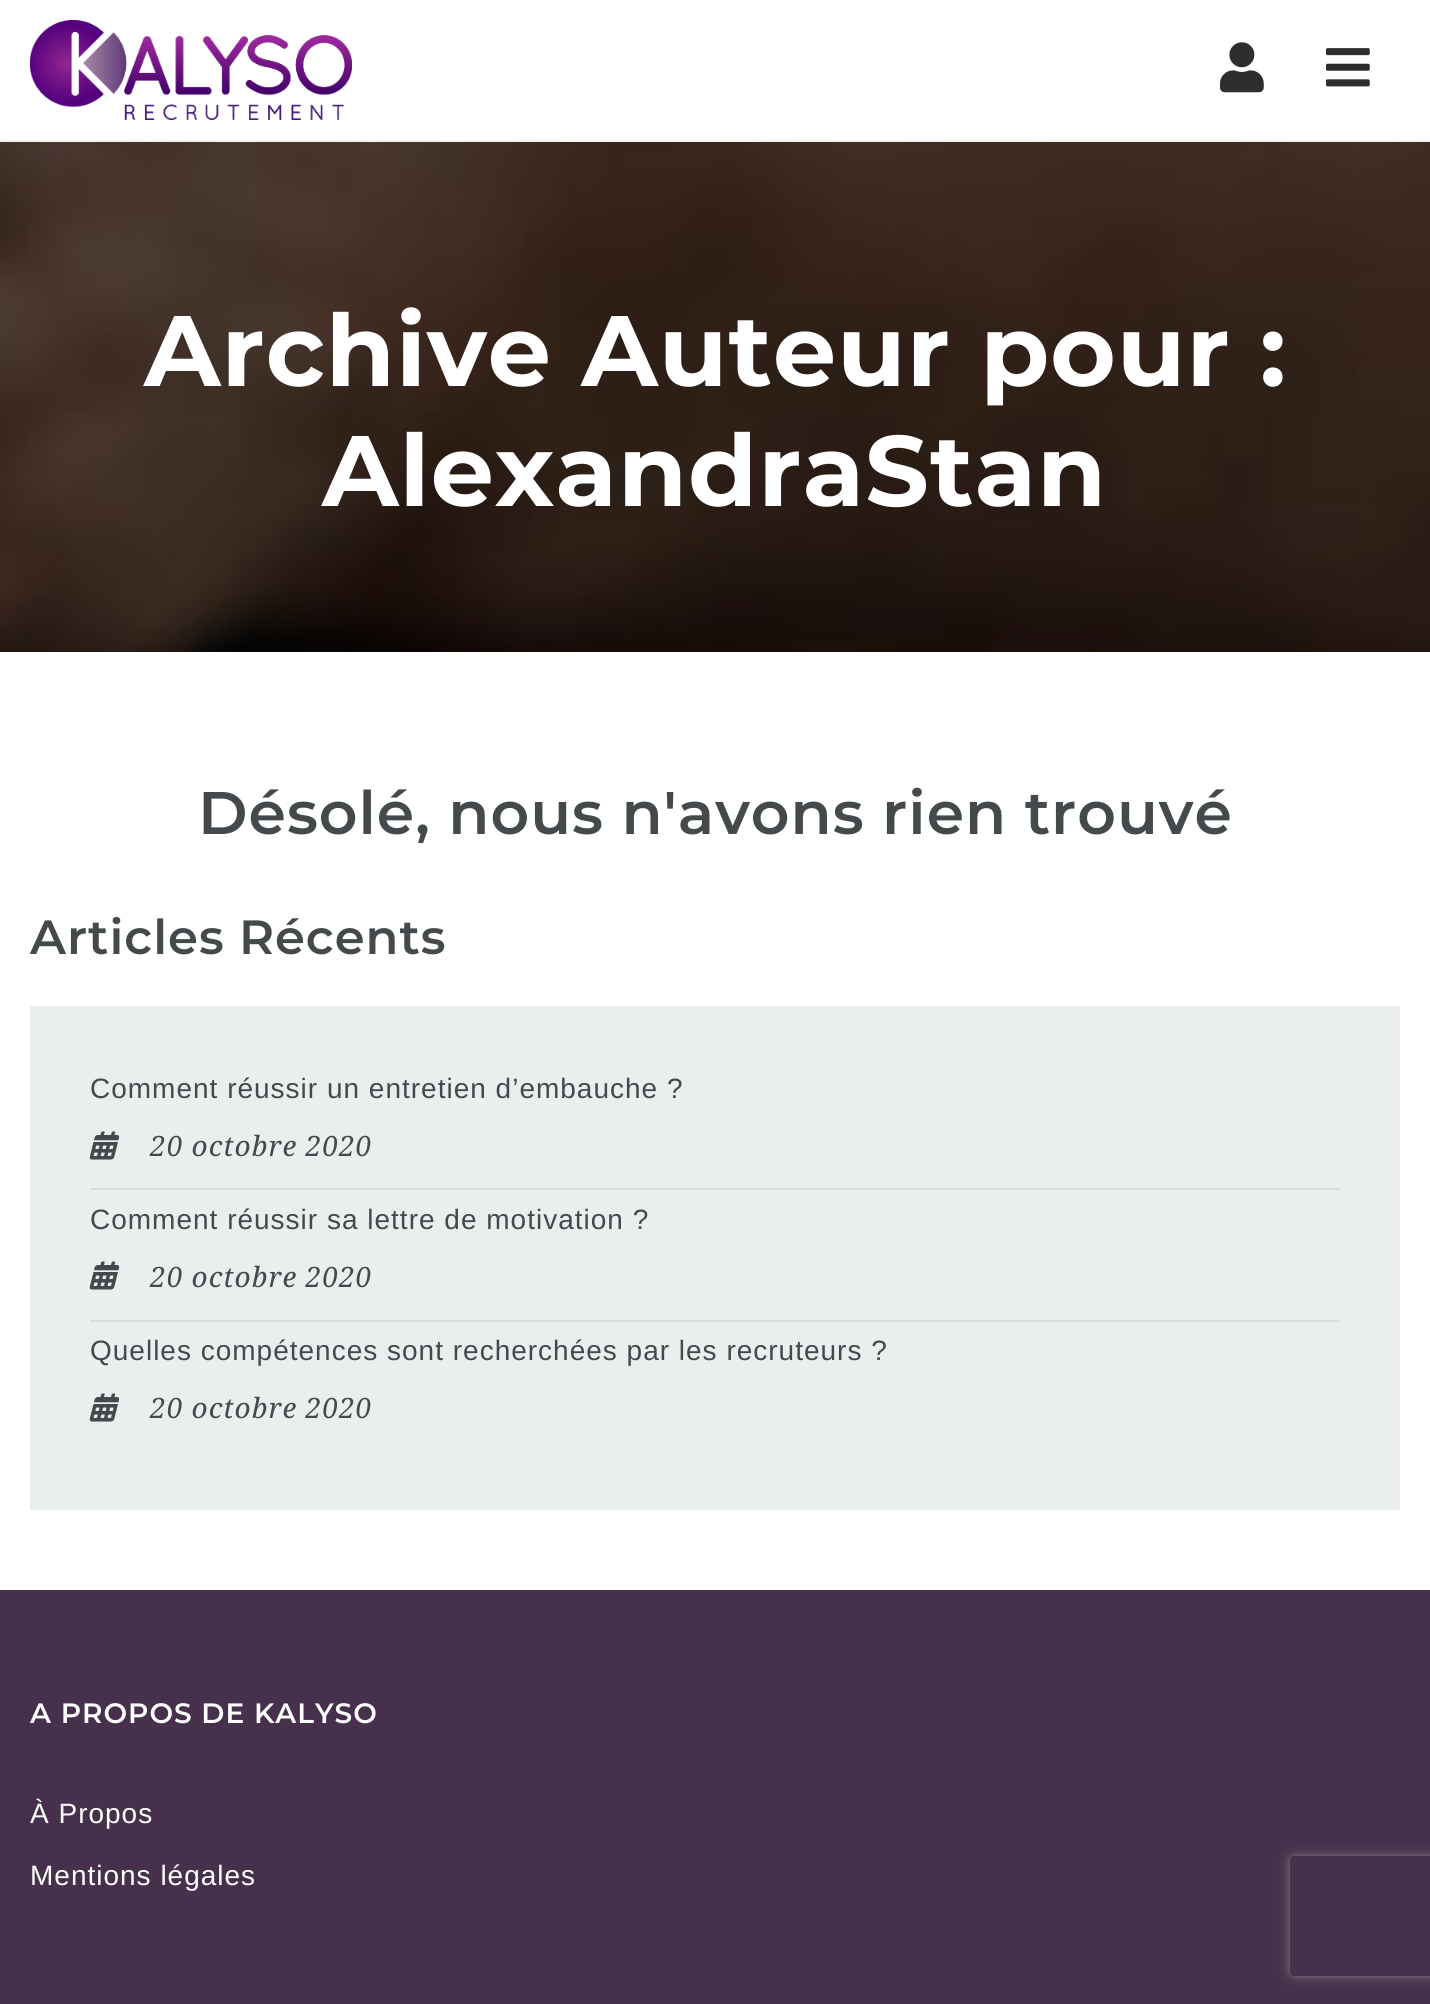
#include <cairo.h>
#include <math.h>
#include <stddef.h>

static cairo_t *c;
static void C(unsigned color){cairo_set_source_rgb(c, (color >> 16) / 255.0, (color >> 8 & 255) / 255.0, (color & 255) / 255.0);}
static void F(const char *family, double size, int italic, int bold){cairo_select_font_face(c, family, italic ? CAIRO_FONT_SLANT_ITALIC : CAIRO_FONT_SLANT_NORMAL,bold ? CAIRO_FONT_WEIGHT_BOLD : CAIRO_FONT_WEIGHT_NORMAL);cairo_set_font_size(c, size);}
static void L(double x, double y, const char *s, double letter, double word){cairo_move_to(c, x, y);while (*s) {char ch[5] = {0};int n = 0;do ch[n++] = *s++; while ((*s & 0xC0) == 0x80);cairo_show_text(c, ch);cairo_rel_move_to(c, letter + word * (*ch == ' '), 0);}}
static void R(double x, double y, double w, double h){cairo_rectangle(c, x, y, w, h);cairo_fill(c);}
static void Q(double x, double y, double w, double h, double r){cairo_new_sub_path(c);cairo_arc(c, x + w - r, y + h - r, r, 0, M_PI / 2);cairo_arc(c, x + r, y + h - r, r, M_PI / 2, M_PI);cairo_arc(c, x + r, y + r, r, M_PI, 1.5 * M_PI);cairo_arc(c, x + w - r, y + r, r, 1.5 * M_PI, 2 * M_PI);cairo_close_path(c);}
static void S(double x, double y, double w, double h, double r, double blur, double alpha){cairo_push_group_with_content(c, CAIRO_CONTENT_ALPHA);cairo_set_operator(c, CAIRO_OPERATOR_SOURCE);for (int i = 15; i >= -15 && fmin(w, h) + blur * i / 3 > 0; i -= 2) {double e = blur * i / 6;cairo_set_source_rgba(c, 0, 0, 0, alpha * erfc((i - 1) / 8.5) / 2);Q(x - e, y - e, w + 2 * e, h + 2 * e, fmax(0, fmin(r + e + blur * .6, fmin(w, h) / 2 + e)));cairo_fill(c);}cairo_pattern_t *soft = cairo_pop_group(c);cairo_mask(c, soft);cairo_pattern_destroy(soft);}
static void I(const char *path, double x, double y, double w, double h){cairo_surface_t *image = cairo_image_surface_create_from_png(path);cairo_save(c);cairo_set_source_surface(c, image, x, y);cairo_rectangle(c, x, y, w, h);cairo_fill(c);cairo_restore(c);cairo_surface_destroy(image);}
int main(void) {
cairo_surface_t *surface = cairo_image_surface_create(CAIRO_FORMAT_RGB24, 1430, 2004);
c = cairo_create(surface);
cairo_font_options_t *options = cairo_font_options_create();
cairo_font_options_set_hint_metrics(options, CAIRO_HINT_METRICS_OFF);
cairo_font_options_set_hint_style(options, CAIRO_HINT_STYLE_NONE);
cairo_set_font_options(c, options);
cairo_set_miter_limit(c, 4);
C(0xffffff);
cairo_paint(c);
C(0xf2f2f2);
R(0,140,1430,2);
I("1.png",30,20,322,100);
I("2.png",1220,42,44,51);
I("3.png",1326,48,44,39);
I("4.png",0,142,1430,510);
F("Montserrat",100,0,1);
C(0xffffff);
L(144,386,"Archive Auteur pour :",1,0);
L(322,506,"AlexandraStan",1,0);
F("Montserrat SemiBold",60,0,0);
C(0x44494b);
L(198,834,"Désolé, nous n'avons rien trouvé",1,0);
F("Montserrat SemiBold",48,0,0);
L(30,954,"Articles Récents",1,0);
C(0xebeeef);
R(30,1006,1370,504);
C(0xdaddde);
R(90,1188,1250,2);
F("Liberation Sans",28,0,0);
C(0x44494b);
L(90,1098,"Comment réussir un entretien d’embauche ?",1,0);
I("5.png",89,1131,31,29);
F("Droid Serif",28,1,0);
L(150,1156,"20 octobre 2020",1,0);
C(0xdaddde);
R(90,1320,1250,2);
F("Liberation Sans",28,0,0);
C(0x44494b);
L(90,1229,"Comment réussir sa lettre de motivation ?",1,0);
I("5.png",89,1261,31,29);
F("Droid Serif",28,1,0);
L(150,1287,"20 octobre 2020",1,0);
F("Liberation Sans",28,0,0);
L(90,1360,"Quelles compétences sont recherchées par les recruteurs ?",1,0);
I("5.png",89,1393,31,29);
F("Droid Serif",28,1,0);
L(150,1418,"20 octobre 2020",1,0);
C(0x47304c);
R(0,1590,1430,414);
F("Montserrat SemiBold",28,0,0);
C(0xffffff);
L(30,1723,"A PROPOS DE KALYSO",1,0);
F("Liberation Sans",28,0,0);
L(30,1823,"À Propos",1,0);
L(30,1885,"Mentions légales",1,0);
cairo_save(c);
cairo_set_fill_rule(c,CAIRO_FILL_RULE_EVEN_ODD);
cairo_new_path(c);
cairo_move_to(c,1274,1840);
cairo_line_to(c,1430,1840);
cairo_line_to(c,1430,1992);
cairo_line_to(c,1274,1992);
cairo_close_path(c);
cairo_move_to(c,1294,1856);
cairo_line_to(c,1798,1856);
cairo_curve_to(c,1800,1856,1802,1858,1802,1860);
cairo_line_to(c,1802,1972);
cairo_curve_to(c,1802,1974,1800,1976,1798,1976);
cairo_line_to(c,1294,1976);
cairo_curve_to(c,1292,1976,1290,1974,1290,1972);
cairo_line_to(c,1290,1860);
cairo_curve_to(c,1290,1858,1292,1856,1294,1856);
cairo_close_path(c);
cairo_clip(c);
C(0x808080);
S(1290,1856,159,120,4,5,1);
cairo_restore(c);
cairo_surface_write_to_png(surface, "o.png");
cairo_font_options_destroy(options);
cairo_destroy(c);
cairo_surface_destroy(surface);
return 0;
}
